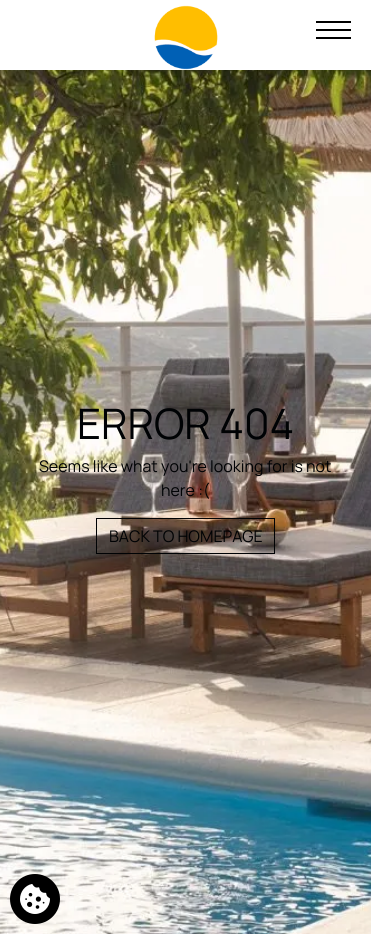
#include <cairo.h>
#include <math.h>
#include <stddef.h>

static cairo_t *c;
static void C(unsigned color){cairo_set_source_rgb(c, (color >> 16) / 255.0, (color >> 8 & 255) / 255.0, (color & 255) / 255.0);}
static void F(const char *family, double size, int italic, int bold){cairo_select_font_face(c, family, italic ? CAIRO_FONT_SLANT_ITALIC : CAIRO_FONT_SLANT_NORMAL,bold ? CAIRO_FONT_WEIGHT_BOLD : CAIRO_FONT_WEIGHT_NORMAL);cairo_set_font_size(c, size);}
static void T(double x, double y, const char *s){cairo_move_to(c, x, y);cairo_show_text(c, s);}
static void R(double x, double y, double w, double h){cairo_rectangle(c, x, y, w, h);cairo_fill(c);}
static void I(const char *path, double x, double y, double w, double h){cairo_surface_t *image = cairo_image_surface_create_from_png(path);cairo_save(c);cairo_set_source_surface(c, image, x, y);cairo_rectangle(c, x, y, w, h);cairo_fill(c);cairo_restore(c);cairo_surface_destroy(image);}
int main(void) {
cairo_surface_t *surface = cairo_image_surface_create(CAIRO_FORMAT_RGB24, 371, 934);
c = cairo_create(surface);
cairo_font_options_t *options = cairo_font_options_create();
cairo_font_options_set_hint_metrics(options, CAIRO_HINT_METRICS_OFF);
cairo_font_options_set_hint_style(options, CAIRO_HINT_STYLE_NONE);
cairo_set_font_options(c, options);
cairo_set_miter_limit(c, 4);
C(0xffffff);
cairo_paint(c);
I("1.png",154,5,64,65);
C(0x000000);
R(316,29,35,2);
R(316,21,35,2);
R(316,37,35,2);
I("2.png",0,70,371,864);
F("Manrope",42,0,0);
C(0x000204);
T(77,439,"ERROR 404");
F("Manrope",16,0,0);
T(39,472,"Seems like what you're looking for is not");
T(161,496,"here :(");
cairo_rectangle(c,96.5,518.5,178,35);
cairo_set_line_width(c,1);
cairo_stroke(c);
T(109,542,"BACK TO HOMEPAGE");
C(0x000000);
cairo_new_path(c);
cairo_arc(c,35,899,25,0,2 * M_PI);
cairo_fill(c);
I("3.png",20,884,30,30);
cairo_surface_write_to_png(surface, "o.png");
cairo_font_options_destroy(options);
cairo_destroy(c);
cairo_surface_destroy(surface);
return 0;
}
